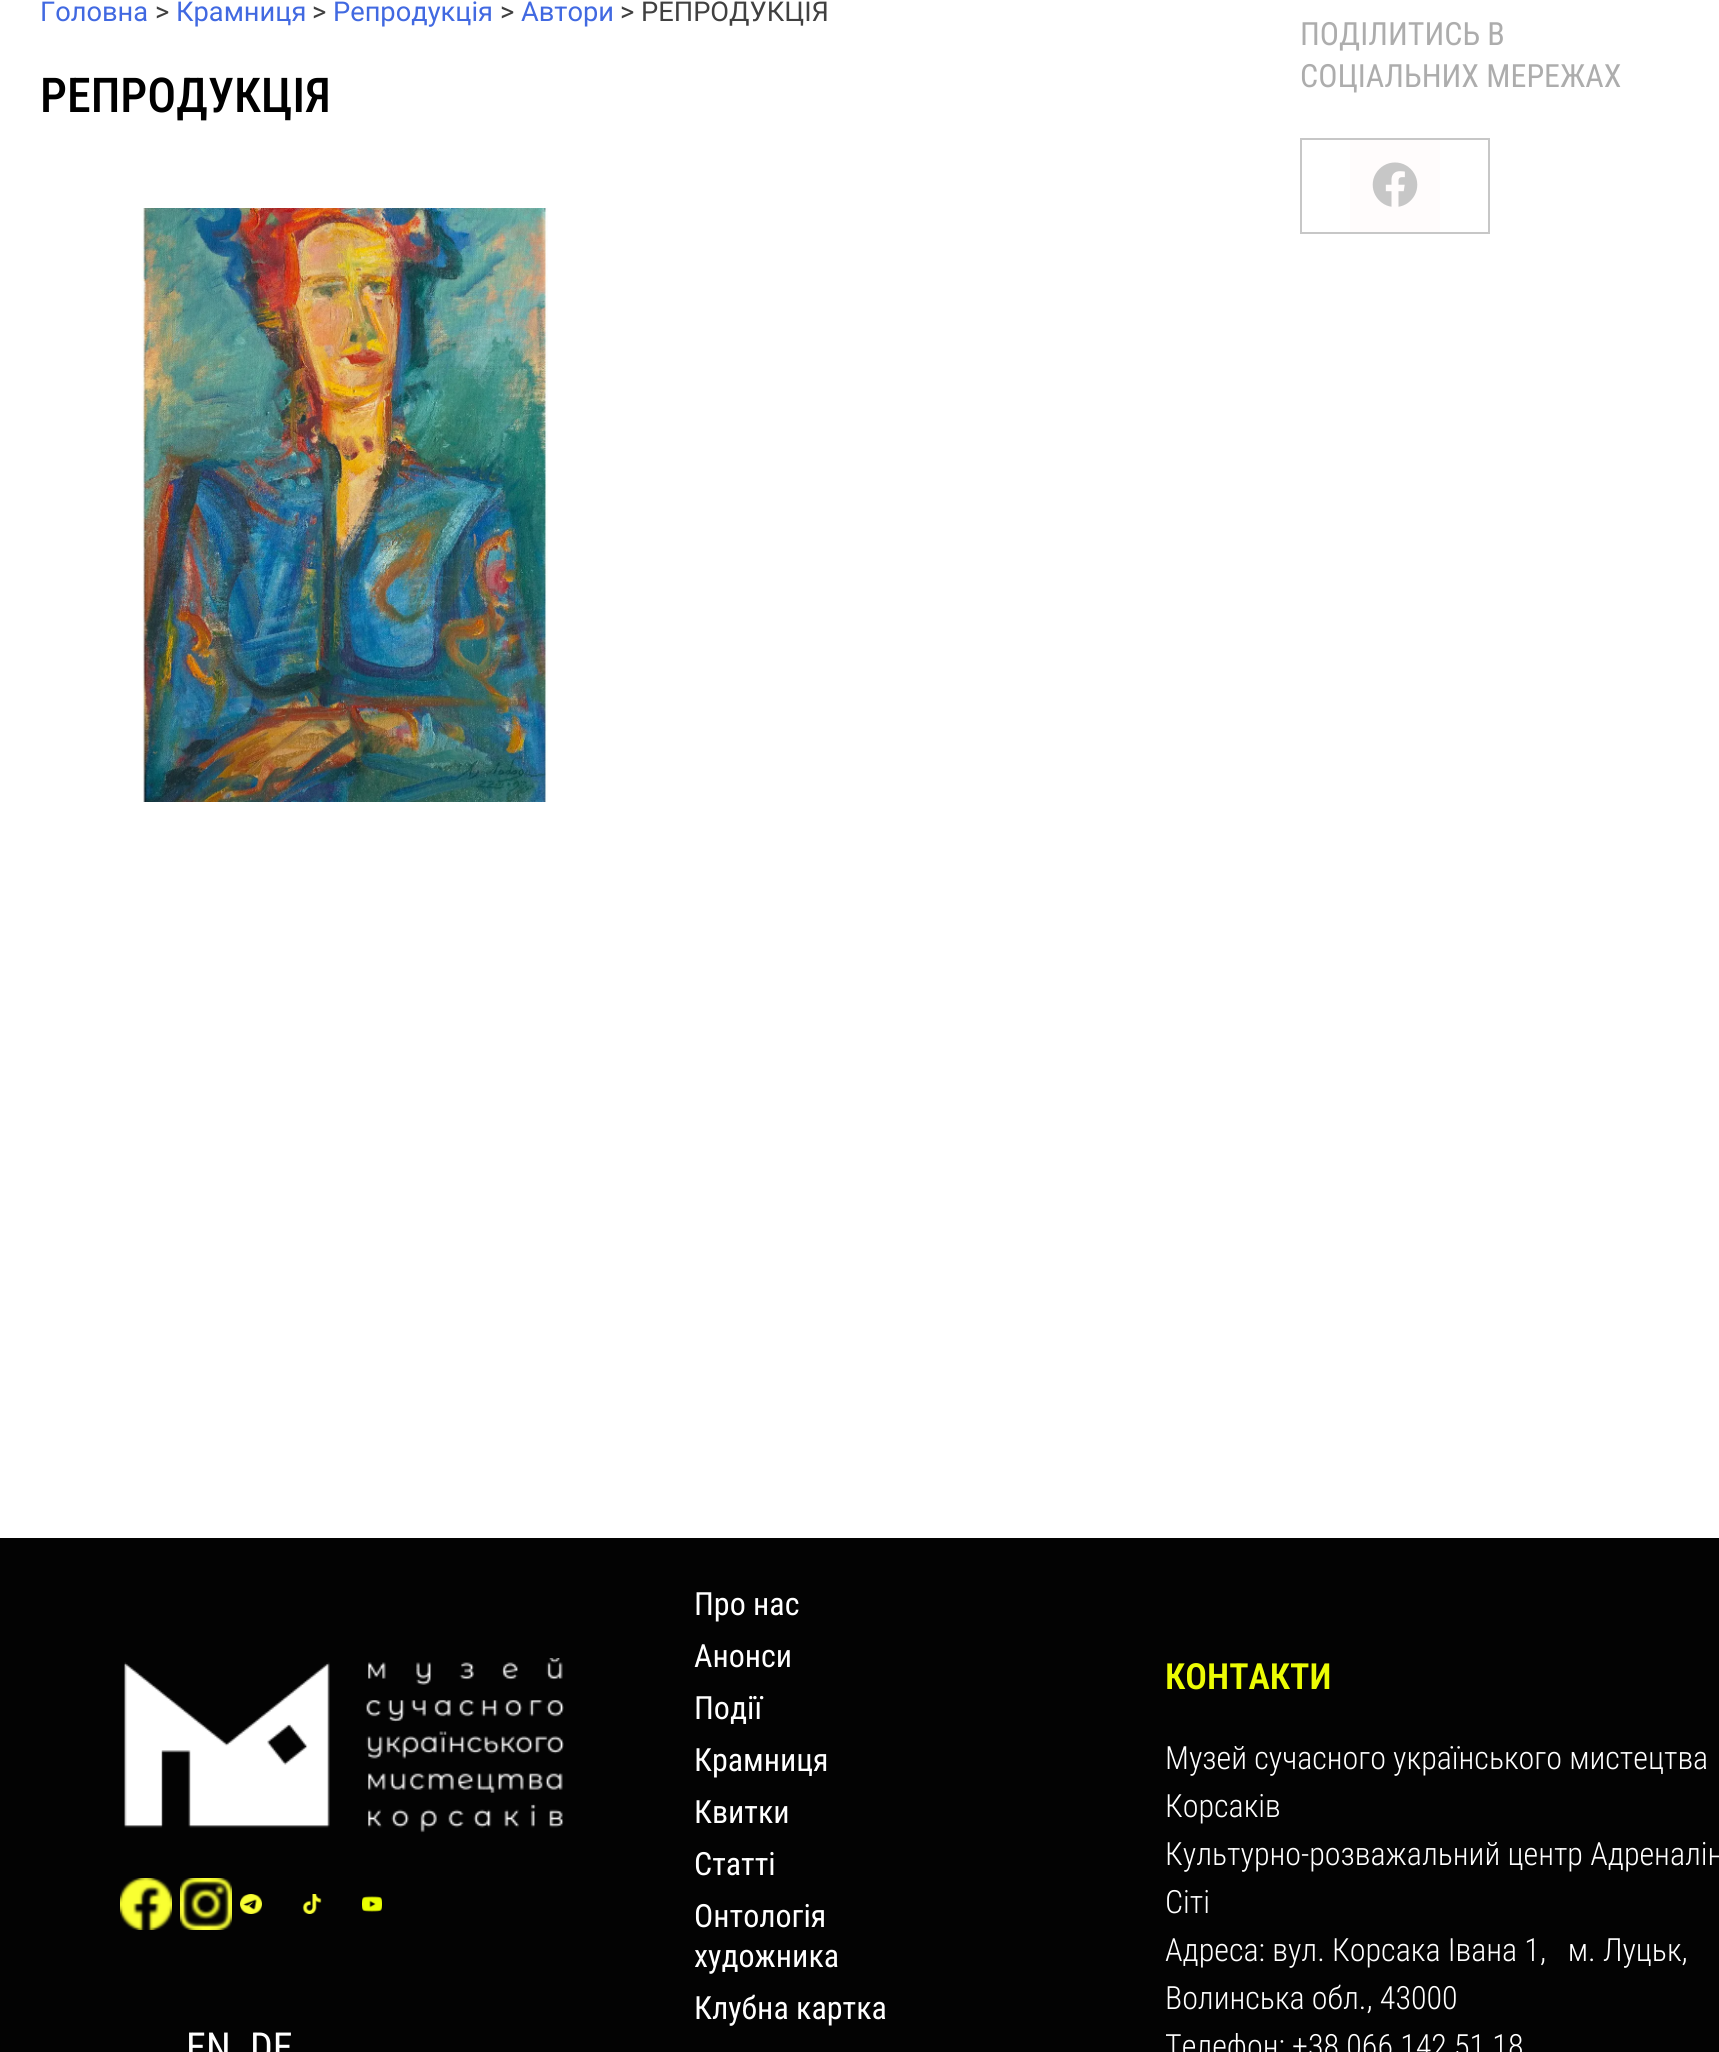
#include <cairo.h>
#include <math.h>
#include <stddef.h>

static cairo_t *c;
static void C(unsigned color){cairo_set_source_rgb(c, (color >> 16) / 255.0, (color >> 8 & 255) / 255.0, (color & 255) / 255.0);}
static void F(const char *family, double size, int italic, int bold){cairo_select_font_face(c, family, italic ? CAIRO_FONT_SLANT_ITALIC : CAIRO_FONT_SLANT_NORMAL,bold ? CAIRO_FONT_WEIGHT_BOLD : CAIRO_FONT_WEIGHT_NORMAL);cairo_set_font_size(c, size);}
static void T(double x, double y, const char *s){cairo_move_to(c, x, y);cairo_show_text(c, s);}
static void R(double x, double y, double w, double h){cairo_rectangle(c, x, y, w, h);cairo_fill(c);}
static void I(const char *path, double x, double y, double w, double h){cairo_surface_t *image = cairo_image_surface_create_from_png(path);cairo_save(c);cairo_set_source_surface(c, image, x, y);cairo_rectangle(c, x, y, w, h);cairo_fill(c);cairo_restore(c);cairo_surface_destroy(image);}
int main(void) {
cairo_surface_t *surface = cairo_image_surface_create(CAIRO_FORMAT_RGB24, 1719, 2052);
c = cairo_create(surface);
cairo_font_options_t *options = cairo_font_options_create();
cairo_font_options_set_hint_metrics(options, CAIRO_HINT_METRICS_OFF);
cairo_font_options_set_hint_style(options, CAIRO_HINT_STYLE_NONE);
cairo_set_font_options(c, options);
cairo_set_miter_limit(c, 4);
C(0xffffff);
cairo_paint(c);
F("Roboto",27.25,0,0);
C(0x4169e1);
T(40,21,"Головна");
C(0x404040);
T(155,21,">");
C(0x4169e1);
T(176,21,"Крамниця");
C(0x404040);
T(312,21,">");
C(0x4169e1);
T(333,21,"Репродукція");
C(0x404040);
T(500,21,">");
C(0x4169e1);
T(521,21,"Автори");
C(0x404040);
T(620,21,"> РЕПРОДУКЦІЯ");
F("Roboto Condensed Medium",48,0,0);
C(0x000000);
T(40,112,"РЕПРОДУКЦІЯ");
I("1.png",141,208,407,594);
F("Roboto Condensed",32,0,0);
C(0xadadad);
T(1300,45,"ПОДІЛИТИСЬ В");
T(1300,87,"СОЦІАЛЬНИХ МЕРЕЖАХ");
cairo_rectangle(c,1301,139,188,94);
C(0xc7c7c7);
cairo_stroke(c);
C(0xfffcfc);
R(1350,140,90,92);
I("2.png",1372,162,46,45);
C(0x030303);
R(0,1538,1719,514);
I("3.png",124,1658,440,175);
I("4.png",120,1878,52,52);
I("5.png",180,1878,52,52);
I("6.png",240,1894,22,20);
I("7.png",302,1894,20,20);
I("8.png",362,1896,20,16);
F("Roboto Condensed",40,0,0);
C(0xffffff);
T(186,2061,"EN");
T(250,2061,"DE");
F("Roboto Condensed",32,0,0);
T(694,1615,"Про нас");
T(694,1667,"Анонси");
T(694,1719,"Події");
T(694,1771,"Крамниця");
T(694,1823,"Квитки");
T(694,1875,"Статті");
T(694,1927,"Онтологія");
T(694,1967,"художника");
T(694,2019,"Клубна картка");
F("Roboto Condensed SemiBold",36,0,0);
C(0xecfc04);
T(1165,1689,"КОНТАКТИ");
F("Roboto Condensed Light",32,0,0);
C(0xffffff);
T(1165,1769,"Музей сучасного українського мистецтва");
T(1165,1817,"Корсаків");
T(1165,1865,"Культурно-розважальний центр Адреналін");
T(1165,1913,"Сіті");
T(1165,1961,"Адреса: вул. Корсака Івана 1,   м. Луцьк,");
T(1165,2009,"Волинська обл., 43000");
T(1165,2057,"Телефон: +38 066 142 51 18");
cairo_surface_write_to_png(surface, "o.png");
cairo_font_options_destroy(options);
cairo_destroy(c);
cairo_surface_destroy(surface);
return 0;
}
